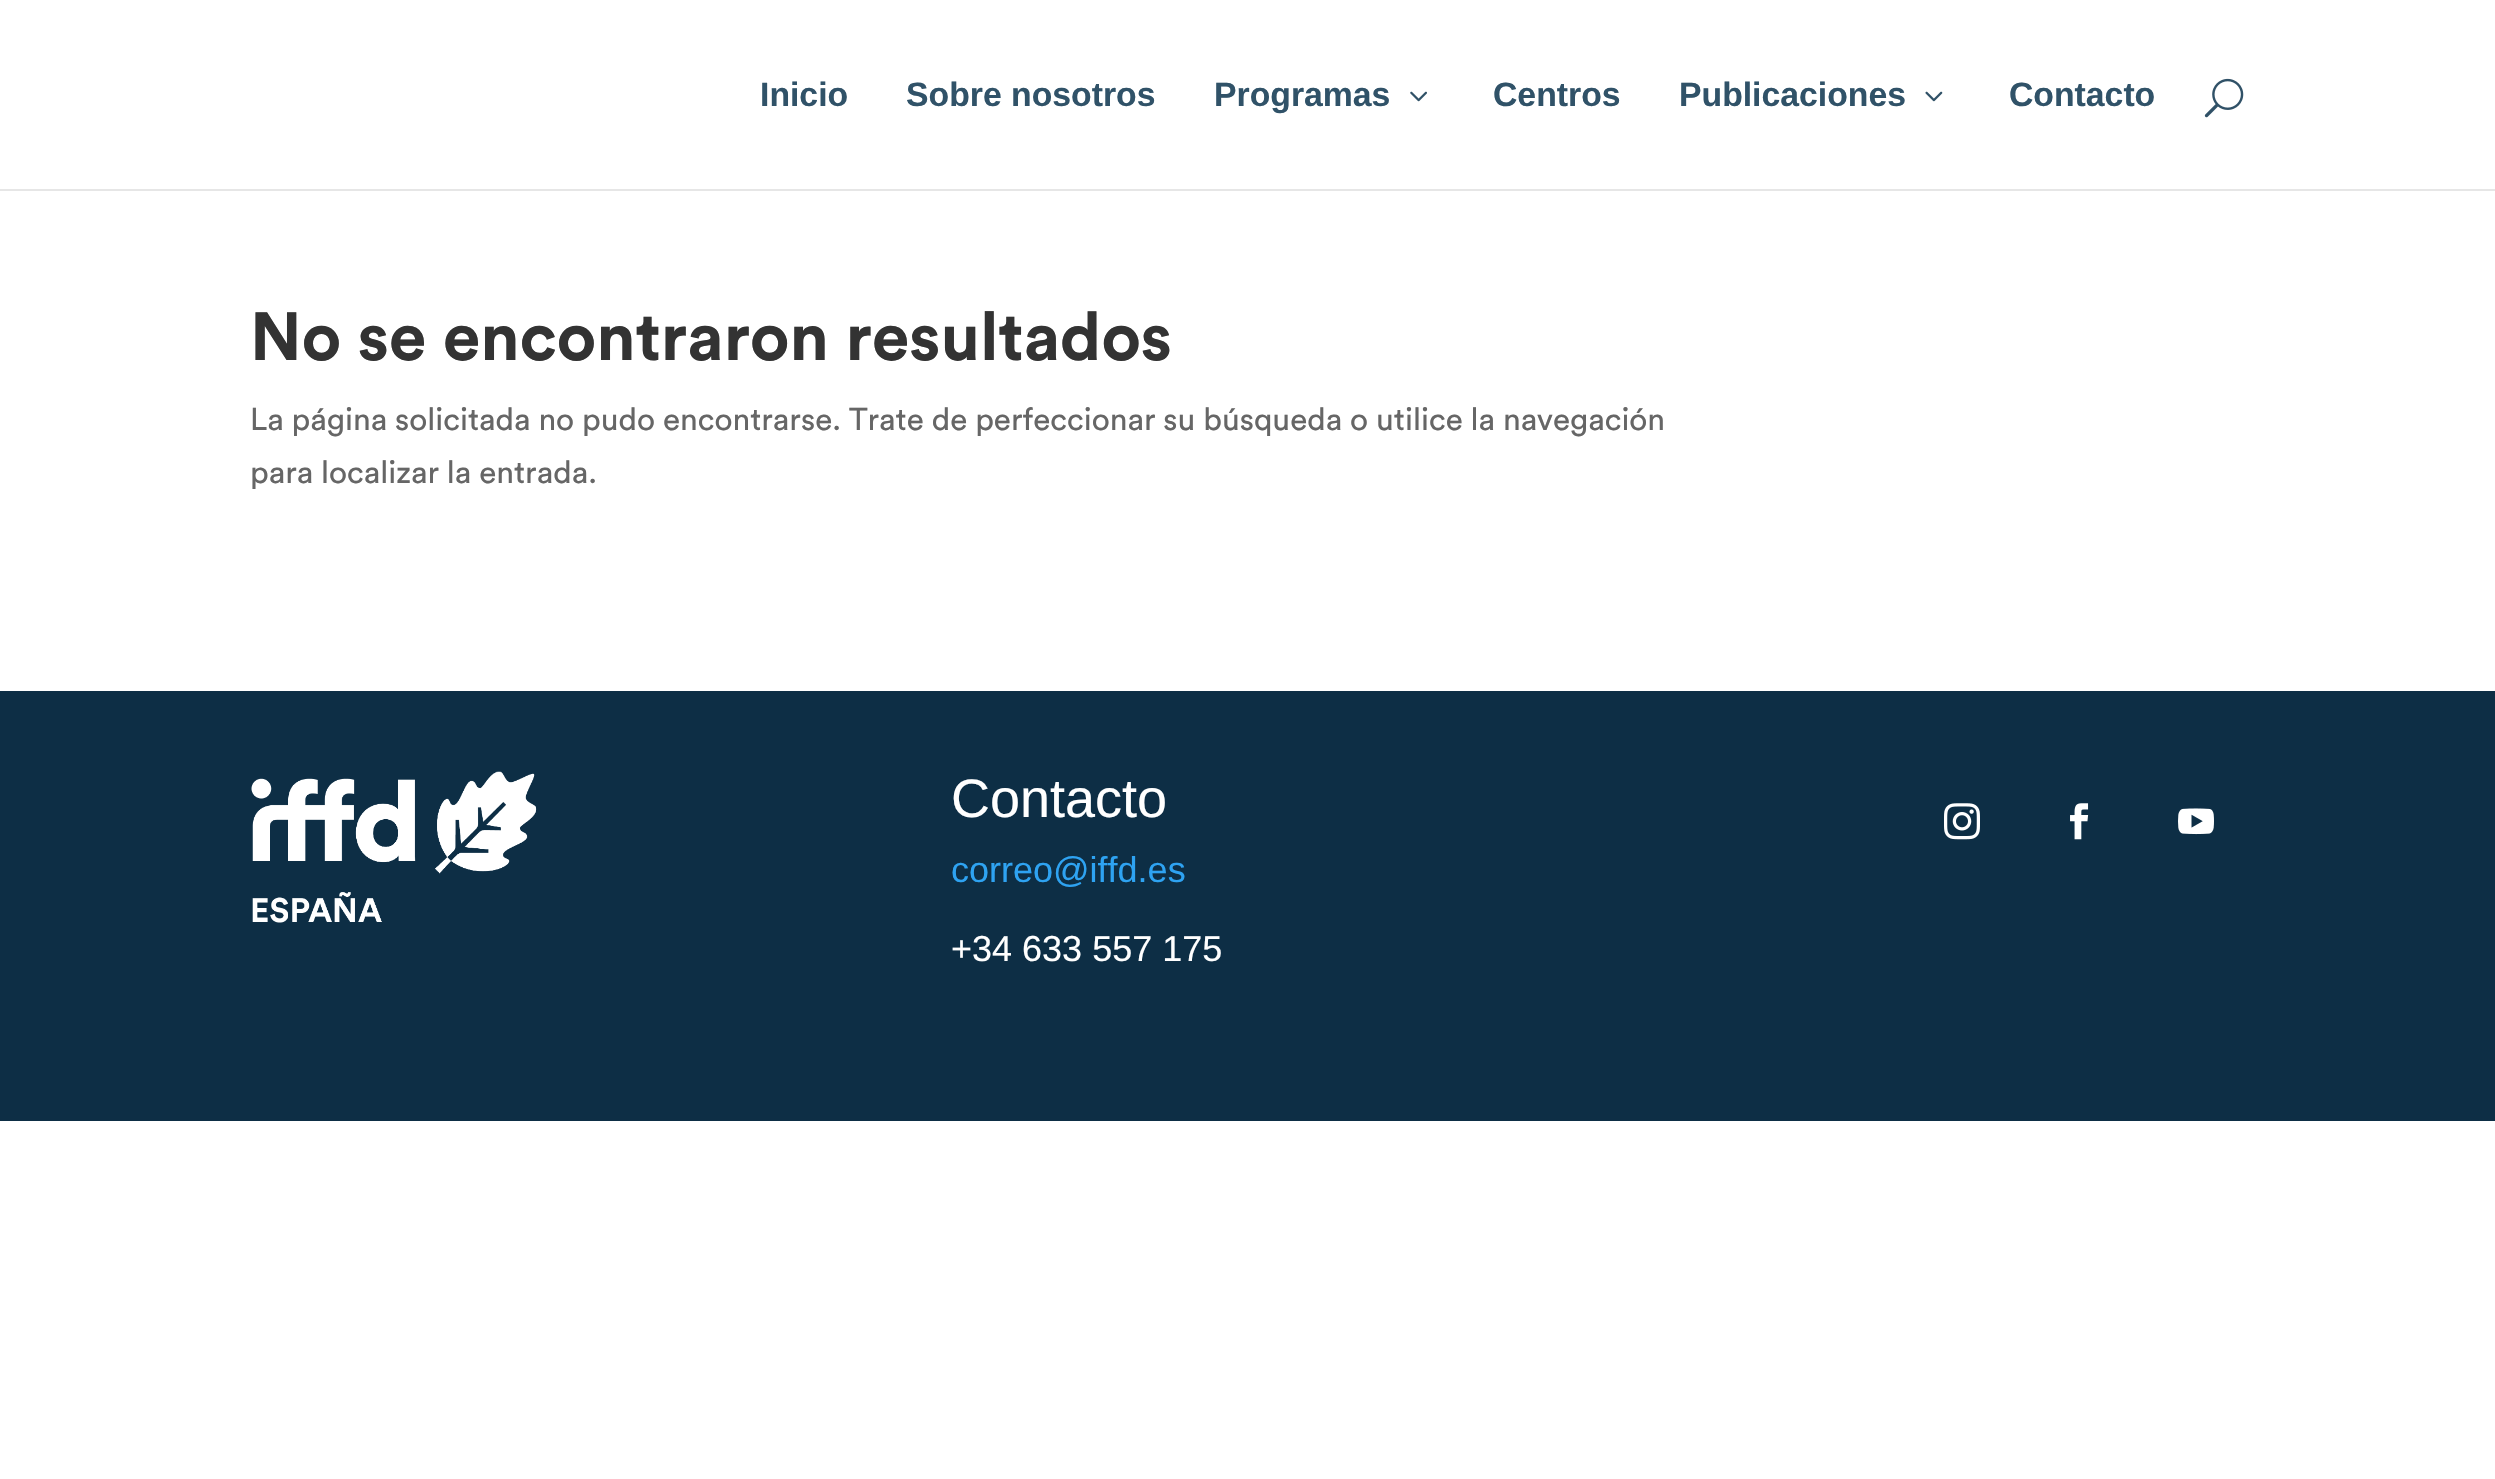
void draw(SkCanvas* canvas) {
    SkPaint paint;
    paint.setAntiAlias(true);
    auto face = [&](const char* family, int weight, float size, bool italic = false) {
        SkFontStyle style(weight, SkFontStyle::kNormal_Width,
            italic ? SkFontStyle::kItalic_Slant : SkFontStyle::kUpright_Slant);
        SkFont result(fontMgr->matchFamilyStyle(family, style), size);
        result.setSubpixel(true);
        return result;
    };
    auto write = [&](const char* s, float x, float y, const SkFont& font, SkColor color) {
        SkPaint ink(SkColor4f::FromColor(color));
        ink.setAntiAlias(true);
        canvas->drawString(s, x, y, font, ink);
    };
    auto block = [&](float x, float y, float w, float h, SkColor color) {
        SkPaint ink(SkColor4f::FromColor(color));
        ink.setAntiAlias(true);
        canvas->drawRect(SkRect::MakeXYWH(x, y, w, h), ink);
    };
    auto paste = [&](const char* path, float x, float y, float w, float h) {
        auto image = SkImages::DeferredFromEncodedData(SkData::MakeFromFileName(path));
        canvas->drawImageRect(image, SkRect::MakeXYWH(x, y, w, h), SkSamplingOptions());
    };
    canvas->clear(SK_ColorWHITE);
    block(0, 189, 2495, 2, SkColorSetRGB(230, 230, 230));
    auto kFont1 = face("Liberation Sans", 700, 33.75f);
    write("Inicio", 760, 106, kFont1, SkColorSetRGB(48, 82, 104));
    write("Sobre nosotros", 906, 106, kFont1, SkColorSetRGB(48, 82, 104));
    write("Programas", 1214, 106, kFont1, SkColorSetRGB(48, 82, 104));
    paste("pic1.png", 1410, 91, 17, 11);
    write("Centros", 1493, 106, kFont1, SkColorSetRGB(48, 82, 104));
    write("Publicaciones", 1679, 106, kFont1, SkColorSetRGB(48, 82, 104));
    paste("pic2.png", 1925, 91, 18, 11);
    write("Contacto", 2009, 106, kFont1, SkColorSetRGB(48, 82, 104));
    paste("pic3.png", 2204, 78, 40, 40);
    auto kFont2 = face("Circular", 700, 67.5f);
    write("No se encontraron resultados", 250, 360, kFont2, SkColorSetRGB(51, 51, 51));
    auto kFont3 = face("Circular", 400, 31.5f);
    write("La página solicitada no pudo encontrarse. Trate de perfeccionar su búsqueda o utilice la navegación", 250, 430, kFont3, SkColorSetRGB(102, 102, 102));
    write("para localizar la entrada.", 250, 483, kFont3, SkColorSetRGB(102, 102, 102));
    block(0, 691, 2495, 430, SkColorSetRGB(13, 46, 69));
    paste("pic4.png", 251, 771, 286, 152);
    auto kFont4 = face("Liberation Sans", 400, 54);
    write("Contacto", 951, 817, kFont4, SK_ColorWHITE);
    auto kFont5 = face("Liberation Sans", 400, 36);
    write("correo@iffd.es", 951, 882, kFont5, SkColorSetRGB(46, 163, 242));
    write("+34 633 557 175", 951, 961, kFont5, SK_ColorWHITE);
    paste("pic5.png", 1944, 803, 36, 37);
    paste("pic6.png", 2070, 803, 19, 37);
    paste("pic7.png", 2178, 808, 36, 27);
}
